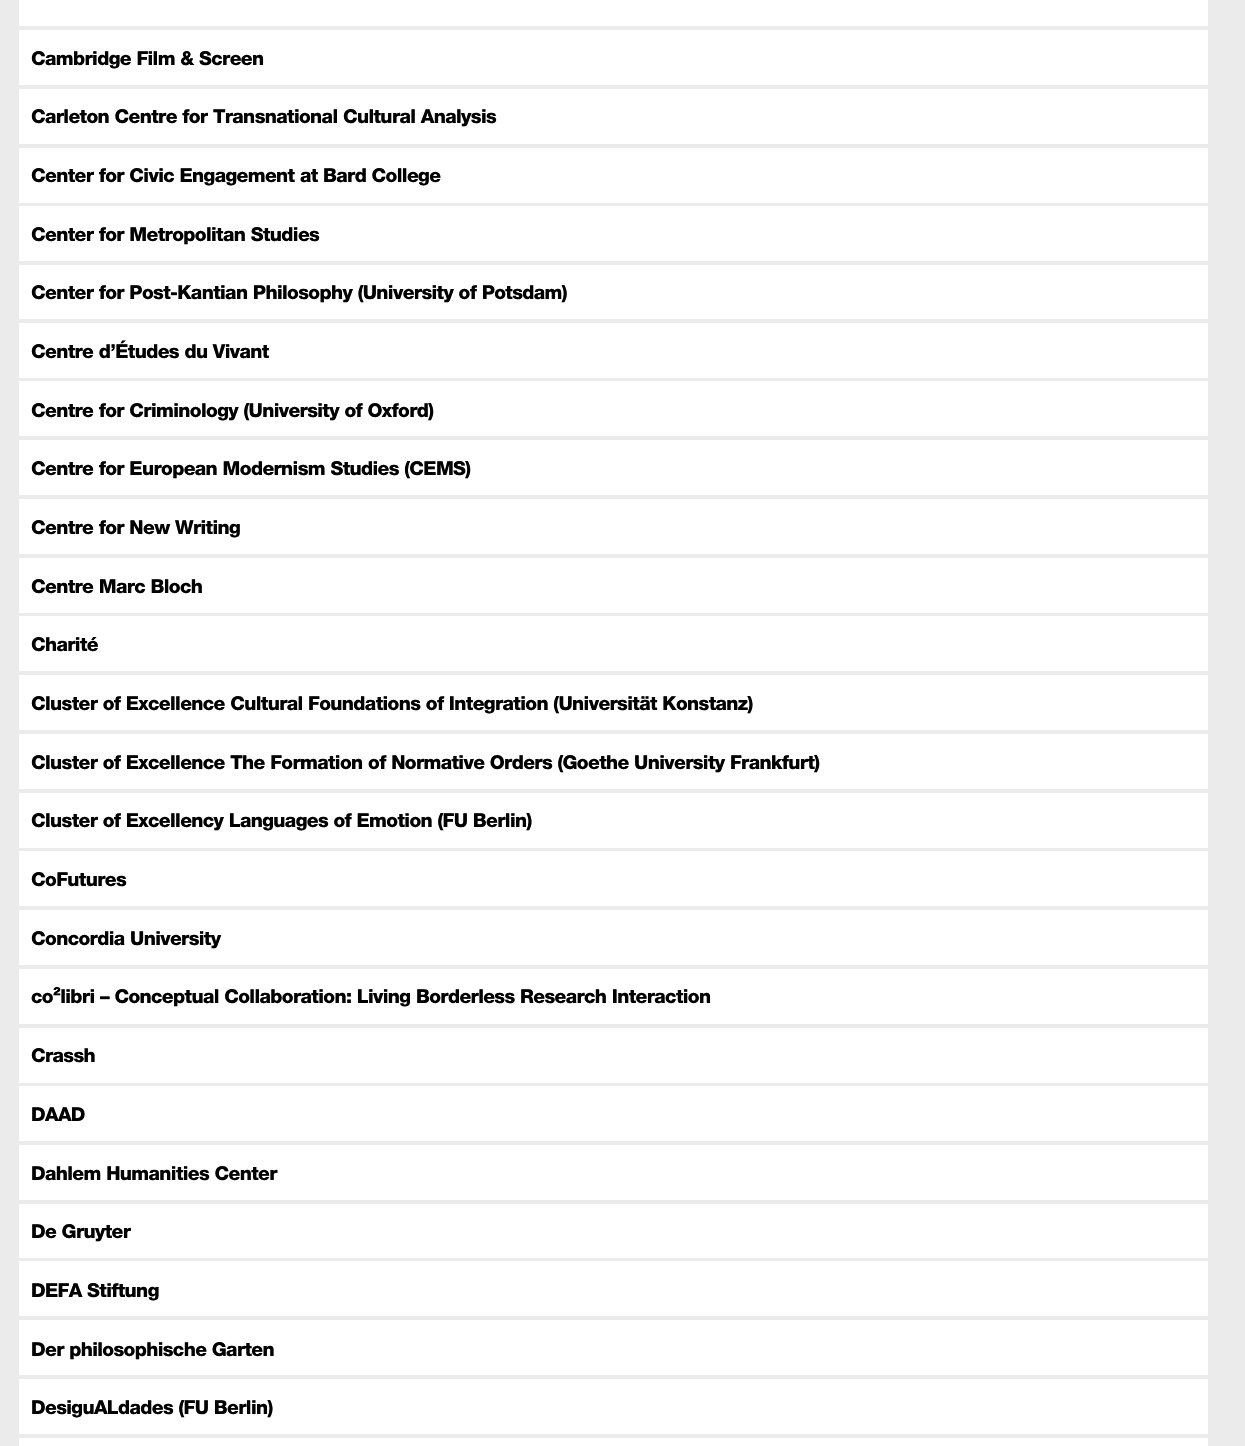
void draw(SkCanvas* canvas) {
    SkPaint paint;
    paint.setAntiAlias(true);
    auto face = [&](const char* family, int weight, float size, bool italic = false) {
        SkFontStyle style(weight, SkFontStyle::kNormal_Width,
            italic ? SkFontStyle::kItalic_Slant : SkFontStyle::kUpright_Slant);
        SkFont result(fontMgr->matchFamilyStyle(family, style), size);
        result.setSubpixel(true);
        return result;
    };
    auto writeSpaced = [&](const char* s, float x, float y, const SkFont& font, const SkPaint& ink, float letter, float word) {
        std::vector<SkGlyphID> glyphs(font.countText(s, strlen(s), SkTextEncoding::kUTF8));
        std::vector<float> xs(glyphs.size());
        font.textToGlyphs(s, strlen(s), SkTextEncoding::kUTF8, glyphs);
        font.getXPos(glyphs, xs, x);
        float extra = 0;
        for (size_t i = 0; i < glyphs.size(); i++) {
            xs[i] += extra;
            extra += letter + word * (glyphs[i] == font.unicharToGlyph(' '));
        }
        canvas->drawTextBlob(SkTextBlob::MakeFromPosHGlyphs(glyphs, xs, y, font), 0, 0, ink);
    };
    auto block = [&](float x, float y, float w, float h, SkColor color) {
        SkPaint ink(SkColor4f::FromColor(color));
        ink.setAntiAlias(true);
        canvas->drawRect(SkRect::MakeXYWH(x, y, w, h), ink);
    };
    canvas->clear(SkColorSetRGB(235, 235, 235));
    block(19, 0, 1189, 26, SK_ColorWHITE);
    block(19, 30, 1189, 55, SK_ColorWHITE);
    auto kFont1 = face("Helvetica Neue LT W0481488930", 900, 19.25f);
    paint.setColor(SK_ColorBLACK);
    writeSpaced("Cambridge Film & Screen", 31, 65, kFont1, paint, -0.62f, 0);
    block(19, 89, 1189, 55, SK_ColorWHITE);
    writeSpaced("Carleton Centre for Transnational Cultural Analysis", 31, 123, kFont1, paint, -0.62f, 0);
    block(19, 148, 1189, 55, SK_ColorWHITE);
    writeSpaced("Center for Civic Engagement at Bard College", 31, 182, kFont1, paint, -0.62f, 0);
    block(19, 206, 1189, 55, SK_ColorWHITE);
    writeSpaced("Center for Metropolitan Studies", 31, 241, kFont1, paint, -0.62f, 0);
    block(19, 265, 1189, 54, SK_ColorWHITE);
    writeSpaced("Center for Post-Kantian Philosophy (University of Potsdam)", 31, 299, kFont1, paint, -0.62f, 0);
    block(19, 323, 1189, 55, SK_ColorWHITE);
    writeSpaced("Centre d’Études du Vivant", 31, 358, kFont1, paint, -0.62f, 0);
    block(19, 381, 1189, 55, SK_ColorWHITE);
    writeSpaced("Centre for Criminology (University of Oxford)", 31, 417, kFont1, paint, -0.62f, 0);
    block(19, 440, 1189, 55, SK_ColorWHITE);
    writeSpaced("Centre for European Modernism Studies (CEMS)", 31, 475, kFont1, paint, -0.62f, 0);
    block(19, 499, 1189, 55, SK_ColorWHITE);
    writeSpaced("Centre for New Writing", 31, 534, kFont1, paint, -0.62f, 0);
    block(19, 558, 1189, 55, SK_ColorWHITE);
    writeSpaced("Centre Marc Bloch", 31, 593, kFont1, paint, -0.62f, 0);
    block(19, 616, 1189, 55, SK_ColorWHITE);
    writeSpaced("Charité", 31, 651, kFont1, paint, -0.62f, 0);
    block(19, 675, 1189, 55, SK_ColorWHITE);
    writeSpaced("Cluster of Excellence Cultural Foundations of Integration (Universität Konstanz)", 31, 710, kFont1, paint, -0.62f, 0);
    block(19, 734, 1189, 55, SK_ColorWHITE);
    writeSpaced("Cluster of Excellence The Formation of Normative Orders (Goethe University Frankfurt)", 31, 769, kFont1, paint, -0.62f, 0);
    block(19, 793, 1189, 55, SK_ColorWHITE);
    writeSpaced("Cluster of Excellency Languages of Emotion (FU Berlin)", 31, 827, kFont1, paint, -0.62f, 0);
    block(19, 851, 1189, 55, SK_ColorWHITE);
    writeSpaced("CoFutures", 31, 886, kFont1, paint, -0.62f, 0);
    block(19, 910, 1189, 55, SK_ColorWHITE);
    writeSpaced("Concordia University", 31, 945, kFont1, paint, -0.62f, 0);
    block(19, 969, 1189, 55, SK_ColorWHITE);
    writeSpaced("co²libri – Conceptual Collaboration: Living Borderless Research Interaction", 31, 1003, kFont1, paint, -0.62f, 0);
    block(19, 1028, 1189, 55, SK_ColorWHITE);
    writeSpaced("Crassh", 31, 1062, kFont1, paint, -0.62f, 0);
    block(19, 1086, 1189, 55, SK_ColorWHITE);
    writeSpaced("DAAD", 31, 1121, kFont1, paint, -0.62f, 0);
    block(19, 1145, 1189, 55, SK_ColorWHITE);
    writeSpaced("Dahlem Humanities Center", 31, 1180, kFont1, paint, -0.62f, 0);
    block(19, 1204, 1189, 54, SK_ColorWHITE);
    writeSpaced("De Gruyter", 31, 1238, kFont1, paint, -0.62f, 0);
    block(19, 1261, 1189, 55, SK_ColorWHITE);
    writeSpaced("DEFA Stiftung", 31, 1297, kFont1, paint, -0.62f, 0);
    block(19, 1320, 1189, 55, SK_ColorWHITE);
    writeSpaced("Der philosophische Garten", 31, 1356, kFont1, paint, -0.62f, 0);
    block(19, 1379, 1189, 55, SK_ColorWHITE);
    writeSpaced("DesiguALdades (FU Berlin)", 31, 1414, kFont1, paint, -0.62f, 0);
    block(19, 1438, 1189, 8, SK_ColorWHITE);
}
